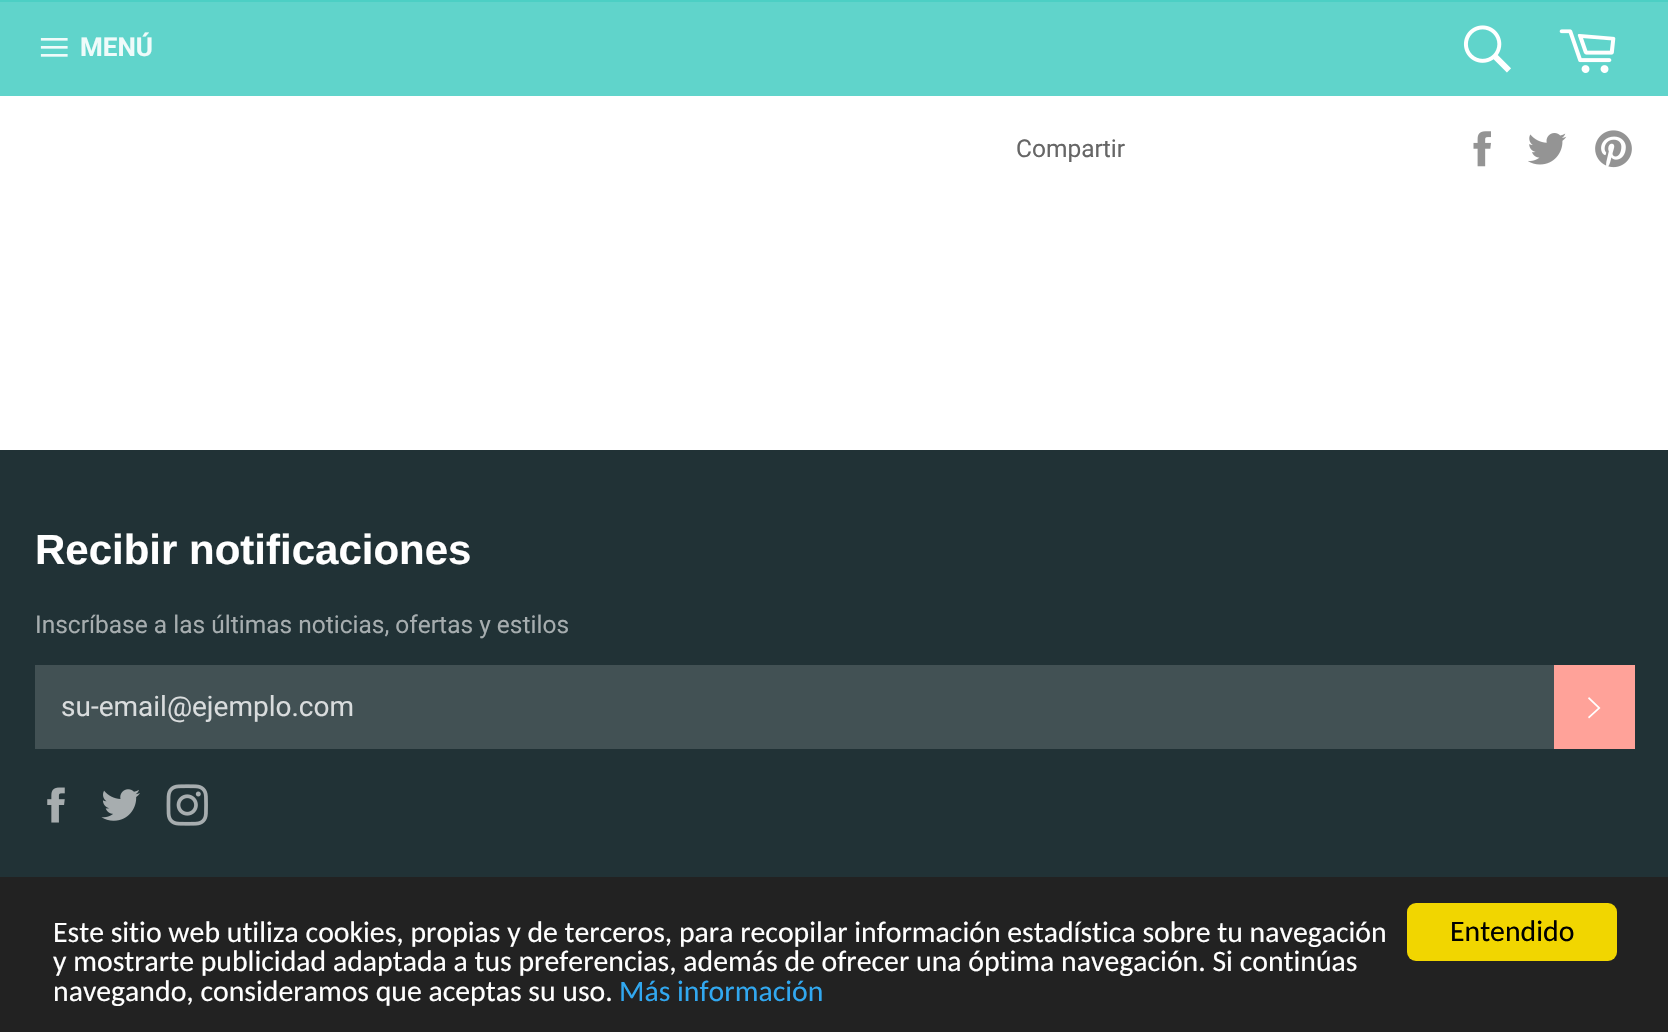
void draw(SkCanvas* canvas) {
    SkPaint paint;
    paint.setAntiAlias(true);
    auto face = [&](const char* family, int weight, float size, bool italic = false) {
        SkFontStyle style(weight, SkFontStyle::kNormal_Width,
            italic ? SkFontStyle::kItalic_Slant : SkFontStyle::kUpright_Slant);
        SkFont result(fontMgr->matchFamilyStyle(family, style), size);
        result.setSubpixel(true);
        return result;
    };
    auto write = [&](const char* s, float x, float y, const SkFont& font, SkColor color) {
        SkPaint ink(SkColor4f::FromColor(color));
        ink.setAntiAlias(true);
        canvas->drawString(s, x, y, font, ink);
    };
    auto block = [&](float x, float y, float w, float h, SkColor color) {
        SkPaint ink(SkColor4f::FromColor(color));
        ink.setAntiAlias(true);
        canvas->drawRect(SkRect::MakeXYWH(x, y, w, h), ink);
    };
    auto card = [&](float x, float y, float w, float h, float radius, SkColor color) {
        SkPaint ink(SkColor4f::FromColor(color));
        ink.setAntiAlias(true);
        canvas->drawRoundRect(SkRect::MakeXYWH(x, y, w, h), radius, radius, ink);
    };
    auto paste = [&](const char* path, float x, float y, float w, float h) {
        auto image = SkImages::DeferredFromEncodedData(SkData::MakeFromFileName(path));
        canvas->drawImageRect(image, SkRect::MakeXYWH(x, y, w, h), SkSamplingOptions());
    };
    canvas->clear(SkColorSetRGB(33, 50, 54));
    block(0, 96, 1668, 354, SK_ColorWHITE);
    block(0, 2, 1668, 94, SkColorSetRGB(96, 212, 203));
    block(0, 0, 1668, 2, SkColorSetRGB(76, 207, 196));
    paste("pic1.png", 40, 38, 28, 19);
    auto kFont1 = face("Roboto", 700, 26);
    write("MENÚ", 80, 56, kFont1, SkColorSetRGB(239, 251, 250));
    paste("pic2.png", 1463, 25, 48, 48);
    paste("pic3.png", 1559, 29, 57, 44);
    auto kFont2 = face("Roboto", 400, 24.5f);
    write("Compartir", 1016, 157, kFont2, SkColorSetRGB(102, 102, 102));
    paste("pic4.png", 1473, 131, 18, 36);
    paste("pic5.png", 1528, 133, 39, 32);
    paste("pic6.png", 1595, 130, 37, 38);
    auto kFont3 = face("Liberation Sans", 700, 42);
    write("Recibir notificaciones", 35, 564, kFont3, SK_ColorWHITE);
    write("Inscríbase a las últimas noticias, ofertas y estilos", 35, 633, kFont2, SkColorSetRGB(166, 173, 175));
    block(35, 665, 1519, 84, SkColorSetRGB(66, 81, 84));
    auto kFont4 = face("Roboto", 400, 28);
    write("su-email@ejemplo.com", 61, 716, kFont4, SkColorSetRGB(217, 220, 221));
    block(1554, 665, 81, 84, SkColorSetRGB(255, 162, 153));
    paint.setColor(SK_ColorWHITE);
    canvas->drawPath(SkPathBuilder().moveTo(1588, 698.5f).lineTo(1589, 697).lineTo(1600.5f, 708).lineTo(1589, 718.5f).lineTo(1588, 717).lineTo(1598, 708).close().detach(), paint);
    paste("pic7.png", 47, 787, 18, 36);
    paste("pic8.png", 101, 789, 39, 32);
    paste("pic9.png", 166, 784, 42, 42);
    block(0, 877, 1668, 155, SkColorSetRGB(34, 34, 34));
    auto kFont5 = face("Carlito", 400, 29.75f);
    write("Este sitio web utiliza cookies, propias y de terceros, para recopilar información estadística sobre tu navegación", 53, 942, kFont5, SK_ColorWHITE);
    write("y mostrarte publicidad adaptada a tus preferencias, además de ofrecer una óptima navegación. Si continúas", 53, 971, kFont5, SK_ColorWHITE);
    write("navegando, consideramos que aceptas su uso.", 53, 1001, kFont5, SK_ColorWHITE);
    write("Más información", 619, 1001, kFont5, SkColorSetRGB(49, 168, 240));
    card(1407, 903, 210, 58, 9, SkColorSetRGB(241, 214, 0));
    write("Entendido", 1450, 941, kFont5, SK_ColorBLACK);
}
